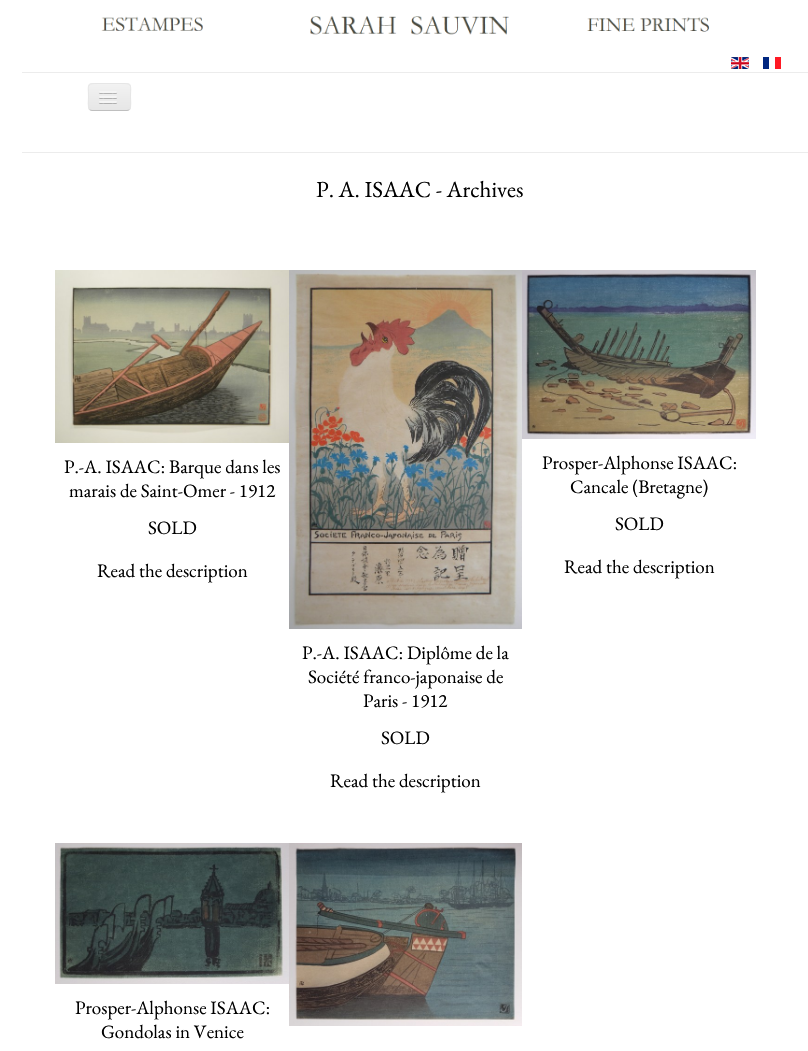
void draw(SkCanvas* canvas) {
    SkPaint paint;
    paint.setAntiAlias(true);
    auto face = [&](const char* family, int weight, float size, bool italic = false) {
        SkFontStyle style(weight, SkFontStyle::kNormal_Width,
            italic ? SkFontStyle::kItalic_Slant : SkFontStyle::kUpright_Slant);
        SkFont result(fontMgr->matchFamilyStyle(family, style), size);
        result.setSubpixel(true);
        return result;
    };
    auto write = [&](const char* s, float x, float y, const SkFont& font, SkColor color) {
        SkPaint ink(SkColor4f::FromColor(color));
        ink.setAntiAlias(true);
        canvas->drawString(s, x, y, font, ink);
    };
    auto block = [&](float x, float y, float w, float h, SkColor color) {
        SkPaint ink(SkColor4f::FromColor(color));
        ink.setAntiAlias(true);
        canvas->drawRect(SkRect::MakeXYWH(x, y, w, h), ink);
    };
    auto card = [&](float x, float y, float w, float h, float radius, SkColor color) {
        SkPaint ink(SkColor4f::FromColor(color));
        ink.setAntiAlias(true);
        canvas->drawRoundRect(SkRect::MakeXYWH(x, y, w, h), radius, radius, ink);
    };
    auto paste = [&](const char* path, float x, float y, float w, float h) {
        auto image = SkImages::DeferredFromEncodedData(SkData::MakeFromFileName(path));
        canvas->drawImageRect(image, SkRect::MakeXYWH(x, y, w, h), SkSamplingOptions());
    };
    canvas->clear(SK_ColorWHITE);
    paste("pic1.png", 101, 16, 609, 19);
    paste("pic2.png", 731, 57, 18, 12);
    paste("pic3.png", 763, 57, 18, 12);
    block(22, 72, 786, 1, SkColorSetRGB(236, 236, 236));
    block(22, 152, 786, 1, SkColorSetRGB(236, 236, 236));
    card(88, 83, 43, 28, 4, SkColorSetRGB(237, 237, 237));
    canvas->save();
    canvas->clipPath(SkPathBuilder().moveTo(92, 83).lineTo(127, 83).cubicTo(129, 83, 131, 85, 131, 87).lineTo(131, 107).cubicTo(131, 109, 129, 111, 127, 111).lineTo(92, 111).cubicTo(90, 111, 88, 109, 88, 107).lineTo(88, 87).cubicTo(88, 85, 90, 83, 92, 83).close().detach(), true);
    {
        const SkColor colors[] = {SkColorSetRGB(242, 242, 242), SkColorSetRGB(230, 230, 230)};
        const float stops[] = {0, 1};
        const SkPoint ends[] = {{110, 84}, {110, 110}};
        paint.setShader(SkGradientShader::MakeLinear(ends, colors, stops, 2, SkTileMode::kClamp));
        paint.setAlpha(255);
    }
    canvas->drawRect(SkRect::MakeXYWH(88, 84, 43, 26), paint);
    canvas->restore();
    paint.setStyle(SkPaint::kStroke_Style);
    paint.setStrokeWidth(1);
    paint.setShader(nullptr);
    paint.setColor(SkColorSetRGB(191, 191, 191));
    canvas->drawPath(SkPathBuilder().moveTo(129.5f, 109.5f).cubicTo(129, 110, 128, 110.5f, 127, 110.5f).lineTo(92, 110.5f).cubicTo(91, 110.5f, 90, 110, 89.5f, 109.5f).detach(), paint);
    paint.setColor(SkColorSetRGB(230, 230, 230));
    canvas->drawPath(SkPathBuilder().moveTo(89.5f, 109.5f).cubicTo(87.5f, 107, 88.5f, 99.5f, 88.5f, 97).cubicTo(88.5f, 85, 86, 83.5f, 98, 83.5f).lineTo(121, 83.5f).cubicTo(133, 83.5f, 130.5f, 85, 130.5f, 97).cubicTo(130.5f, 99.5f, 131.5f, 107, 129.5f, 109.5f).detach(), paint);
    paint.setStyle(SkPaint::kFill_Style);
    paint.setColor(SkColorSetRGB(179, 179, 179));
    canvas->drawPath(SkPathBuilder().moveTo(99, 92.5f).cubicTo(98, 94.5f, 102.5f, 94, 102.5f, 94).lineTo(113.5f, 94).cubicTo(113.5f, 94, 118, 94.5f, 117, 92.5f).cubicTo(116, 93.5f, 109.5f, 93, 108, 93).cubicTo(106.5f, 93, 100, 93.5f, 99, 92.5f).close().detach(), paint);
    card(99, 91, 18, 2, 1, SkColorSetRGB(245, 245, 245));
    paint.setColor(SkColorSetRGB(176, 176, 176));
    canvas->drawPath(SkPathBuilder().moveTo(99, 97.5f).cubicTo(98, 99.5f, 102.5f, 99, 102.5f, 99).lineTo(113.5f, 99).cubicTo(113.5f, 99, 118, 99.5f, 117, 97.5f).cubicTo(116, 98.5f, 109.5f, 98, 108, 98).cubicTo(106.5f, 98, 100, 98.5f, 99, 97.5f).close().detach(), paint);
    card(99, 96, 18, 2, 1, SkColorSetRGB(245, 245, 245));
    paint.setColor(SkColorSetRGB(175, 175, 175));
    canvas->drawPath(SkPathBuilder().moveTo(99, 102.5f).cubicTo(98, 104.5f, 102.5f, 104, 102.5f, 104).lineTo(113.5f, 104).cubicTo(113.5f, 104, 118, 104.5f, 117, 102.5f).cubicTo(116, 103.5f, 109.5f, 103, 108, 103).cubicTo(106.5f, 103, 100, 103.5f, 99, 102.5f).close().detach(), paint);
    card(99, 101, 18, 2, 1, SkColorSetRGB(245, 245, 245));
    auto kFont1 = face("EB Garamond", 400, 23);
    write("P. A. ISAAC - Archives", 316, 197, kFont1, SK_ColorBLACK);
    paste("pic4.png", 55, 270, 234, 173);
    auto kFont2 = face("EB Garamond", 400, 19);
    write("P.-A. ISAAC: Barque dans les", 64, 473, kFont2, SK_ColorBLACK);
    write("marais de Saint-Omer - 1912", 69, 497, kFont2, SK_ColorBLACK);
    write("SOLD", 148, 534, kFont2, SK_ColorBLACK);
    write("Read the description", 97, 577, kFont2, SK_ColorBLACK);
    paste("pic5.png", 522, 270, 234, 169);
    write("Prosper-Alphonse ISAAC:", 542, 469, kFont2, SK_ColorBLACK);
    write("Cancale (Bretagne)", 570, 493, kFont2, SK_ColorBLACK);
    write("SOLD", 615, 530, kFont2, SK_ColorBLACK);
    write("Read the description", 564, 573, kFont2, SK_ColorBLACK);
    paste("pic6.png", 289, 270, 233, 359);
    write("P.-A. ISAAC: Diplôme de la", 302, 659, kFont2, SK_ColorBLACK);
    write("Société franco-japonaise de", 308, 683, kFont2, SK_ColorBLACK);
    write("Paris - 1912", 363, 707, kFont2, SK_ColorBLACK);
    write("SOLD", 381, 744, kFont2, SK_ColorBLACK);
    write("Read the description", 330, 787, kFont2, SK_ColorBLACK);
    paste("pic7.png", 55, 843, 234, 141);
    write("Prosper-Alphonse ISAAC:", 75, 1014, kFont2, SK_ColorBLACK);
    write("Gondolas in Venice", 101, 1038, kFont2, SK_ColorBLACK);
    paste("pic8.png", 289, 843, 233, 183);
}
